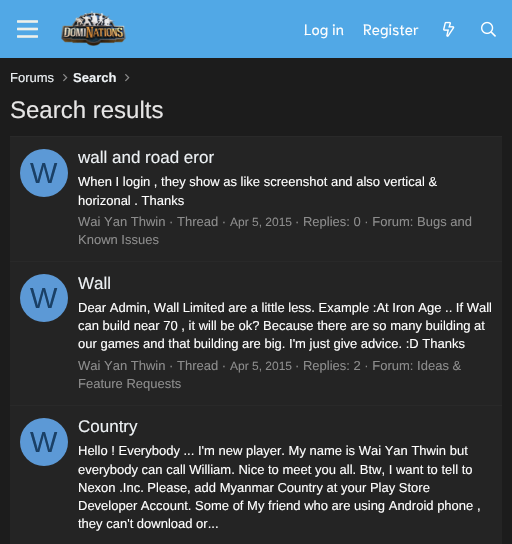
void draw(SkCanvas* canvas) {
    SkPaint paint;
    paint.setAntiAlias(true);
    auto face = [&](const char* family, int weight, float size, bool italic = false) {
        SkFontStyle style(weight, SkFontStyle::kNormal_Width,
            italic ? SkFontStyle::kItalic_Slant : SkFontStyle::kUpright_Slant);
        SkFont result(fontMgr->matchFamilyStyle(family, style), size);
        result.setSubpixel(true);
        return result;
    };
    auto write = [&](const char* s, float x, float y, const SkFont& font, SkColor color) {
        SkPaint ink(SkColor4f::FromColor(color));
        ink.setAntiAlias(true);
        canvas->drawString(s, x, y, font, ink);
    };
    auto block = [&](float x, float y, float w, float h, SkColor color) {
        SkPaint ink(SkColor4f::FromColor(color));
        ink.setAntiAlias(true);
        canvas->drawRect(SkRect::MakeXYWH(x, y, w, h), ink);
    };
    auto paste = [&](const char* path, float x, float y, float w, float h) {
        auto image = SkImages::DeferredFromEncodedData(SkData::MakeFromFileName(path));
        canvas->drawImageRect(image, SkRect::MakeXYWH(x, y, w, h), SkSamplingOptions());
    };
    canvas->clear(SkColorSetRGB(28, 28, 28));
    block(0, 0, 512, 58, SkColorSetRGB(81, 168, 230));
    paste("pic1.png", 17, 20, 21, 18);
    paste("pic2.png", 61, 10, 65, 36);
    auto kFont1 = face("Niramit", 400, 15);
    write("Log in", 304, 35, kFont1, SkColorSetRGB(254, 254, 254));
    write("Register", 363, 35, kFont1, SkColorSetRGB(254, 254, 254));
    paste("pic3.png", 443, 21, 12, 16);
    paste("pic4.png", 481, 21, 15, 16);
    auto kFont2 = face("Liberation Sans", 400, 13);
    write("Forums", 10, 82, kFont2, SkColorSetRGB(236, 240, 243));
    paste("pic5.png", 63, 74, 5, 8);
    auto kFont3 = face("Liberation Sans", 700, 13);
    write("Search", 73, 82, kFont3, SkColorSetRGB(236, 240, 243));
    paste("pic5.png", 125, 74, 5, 8);
    auto kFont4 = face("Liberation Sans", 400, 24);
    write("Search results", 10, 118, kFont4, SkColorSetRGB(230, 229, 229));
    block(10, 136, 492, 1, SkColorSetRGB(41, 41, 41));
    block(10, 137, 492, 124, SkColorSetRGB(36, 36, 36));
    paint.setColor(SkColorSetRGB(92, 153, 214));
    canvas->drawCircle(44, 173, 24, paint);
    auto kFont5 = face("Liberation Sans", 400, 29);
    write("W", 30, 183, kFont5, SkColorSetRGB(26, 64, 102));
    auto kFont6 = face("Liberation Sans", 400, 17);
    write("wall and road eror", 78, 163, kFont6, SkColorSetRGB(236, 240, 243));
    write("When I login , they show as like screenshot and also vertical &", 78, 186, kFont2, SkColorSetRGB(254, 254, 254));
    write("horizonal . Thanks", 78, 205, kFont2, SkColorSetRGB(254, 254, 254));
    write("Wai Yan Thwin · Thread ·", 78, 226, kFont2, SkColorSetRGB(140, 140, 140));
    auto kFont7 = face("Liberation Sans", 400, 12);
    write("Apr 5, 2015", 230, 226, kFont7, SkColorSetRGB(140, 140, 140));
    write("· Replies: 0 · Forum: Bugs and", 295, 226, kFont2, SkColorSetRGB(140, 140, 140));
    write("Known Issues", 78, 244, kFont2, SkColorSetRGB(140, 140, 140));
    block(10, 262, 492, 143, SkColorSetRGB(36, 36, 36));
    block(10, 261, 492, 1, SkColorSetRGB(41, 41, 41));
    canvas->drawCircle(44, 298, 24, paint);
    write("W", 30, 308, kFont5, SkColorSetRGB(26, 64, 102));
    write("Wall", 78, 289, kFont6, SkColorSetRGB(236, 240, 243));
    write("Dear Admin, Wall Limited are a little less. Example :At Iron Age .. If Wall", 78, 312, kFont2, SkColorSetRGB(254, 254, 254));
    write("can build near 70 , it will be ok? Because there are so many building at", 78, 330, kFont2, SkColorSetRGB(254, 254, 254));
    write("our games and that building are big. I'm just give advice. :D Thanks", 78, 348, kFont2, SkColorSetRGB(254, 254, 254));
    write("Wai Yan Thwin · Thread ·", 78, 370, kFont2, SkColorSetRGB(140, 140, 140));
    write("Apr 5, 2015", 230, 370, kFont7, SkColorSetRGB(140, 140, 140));
    write("· Replies: 2 · Forum: Ideas &", 295, 370, kFont2, SkColorSetRGB(140, 140, 140));
    write("Feature Requests", 78, 388, kFont2, SkColorSetRGB(140, 140, 140));
    block(10, 406, 492, 138, SkColorSetRGB(36, 36, 36));
    block(10, 405, 492, 1, SkColorSetRGB(41, 41, 41));
    canvas->drawCircle(44, 442, 24, paint);
    write("W", 30, 452, kFont5, SkColorSetRGB(26, 64, 102));
    write("Country", 78, 432, kFont6, SkColorSetRGB(236, 240, 243));
    write("Hello ! Everybody ... I'm new player. My name is Wai Yan Thwin but", 78, 455, kFont2, SkColorSetRGB(254, 254, 254));
    write("everybody can call William. Nice to meet you all. Btw, I want to tell to", 78, 474, kFont2, SkColorSetRGB(254, 254, 254));
    write("Nexon .Inc. Please, add Myanmar Country at your Play Store", 78, 492, kFont2, SkColorSetRGB(254, 254, 254));
    write("Developer Account. Some of My friend who are using Android phone ,", 78, 510, kFont2, SkColorSetRGB(254, 254, 254));
    write("they can't download or...", 78, 528, kFont2, SkColorSetRGB(254, 254, 254));
}
